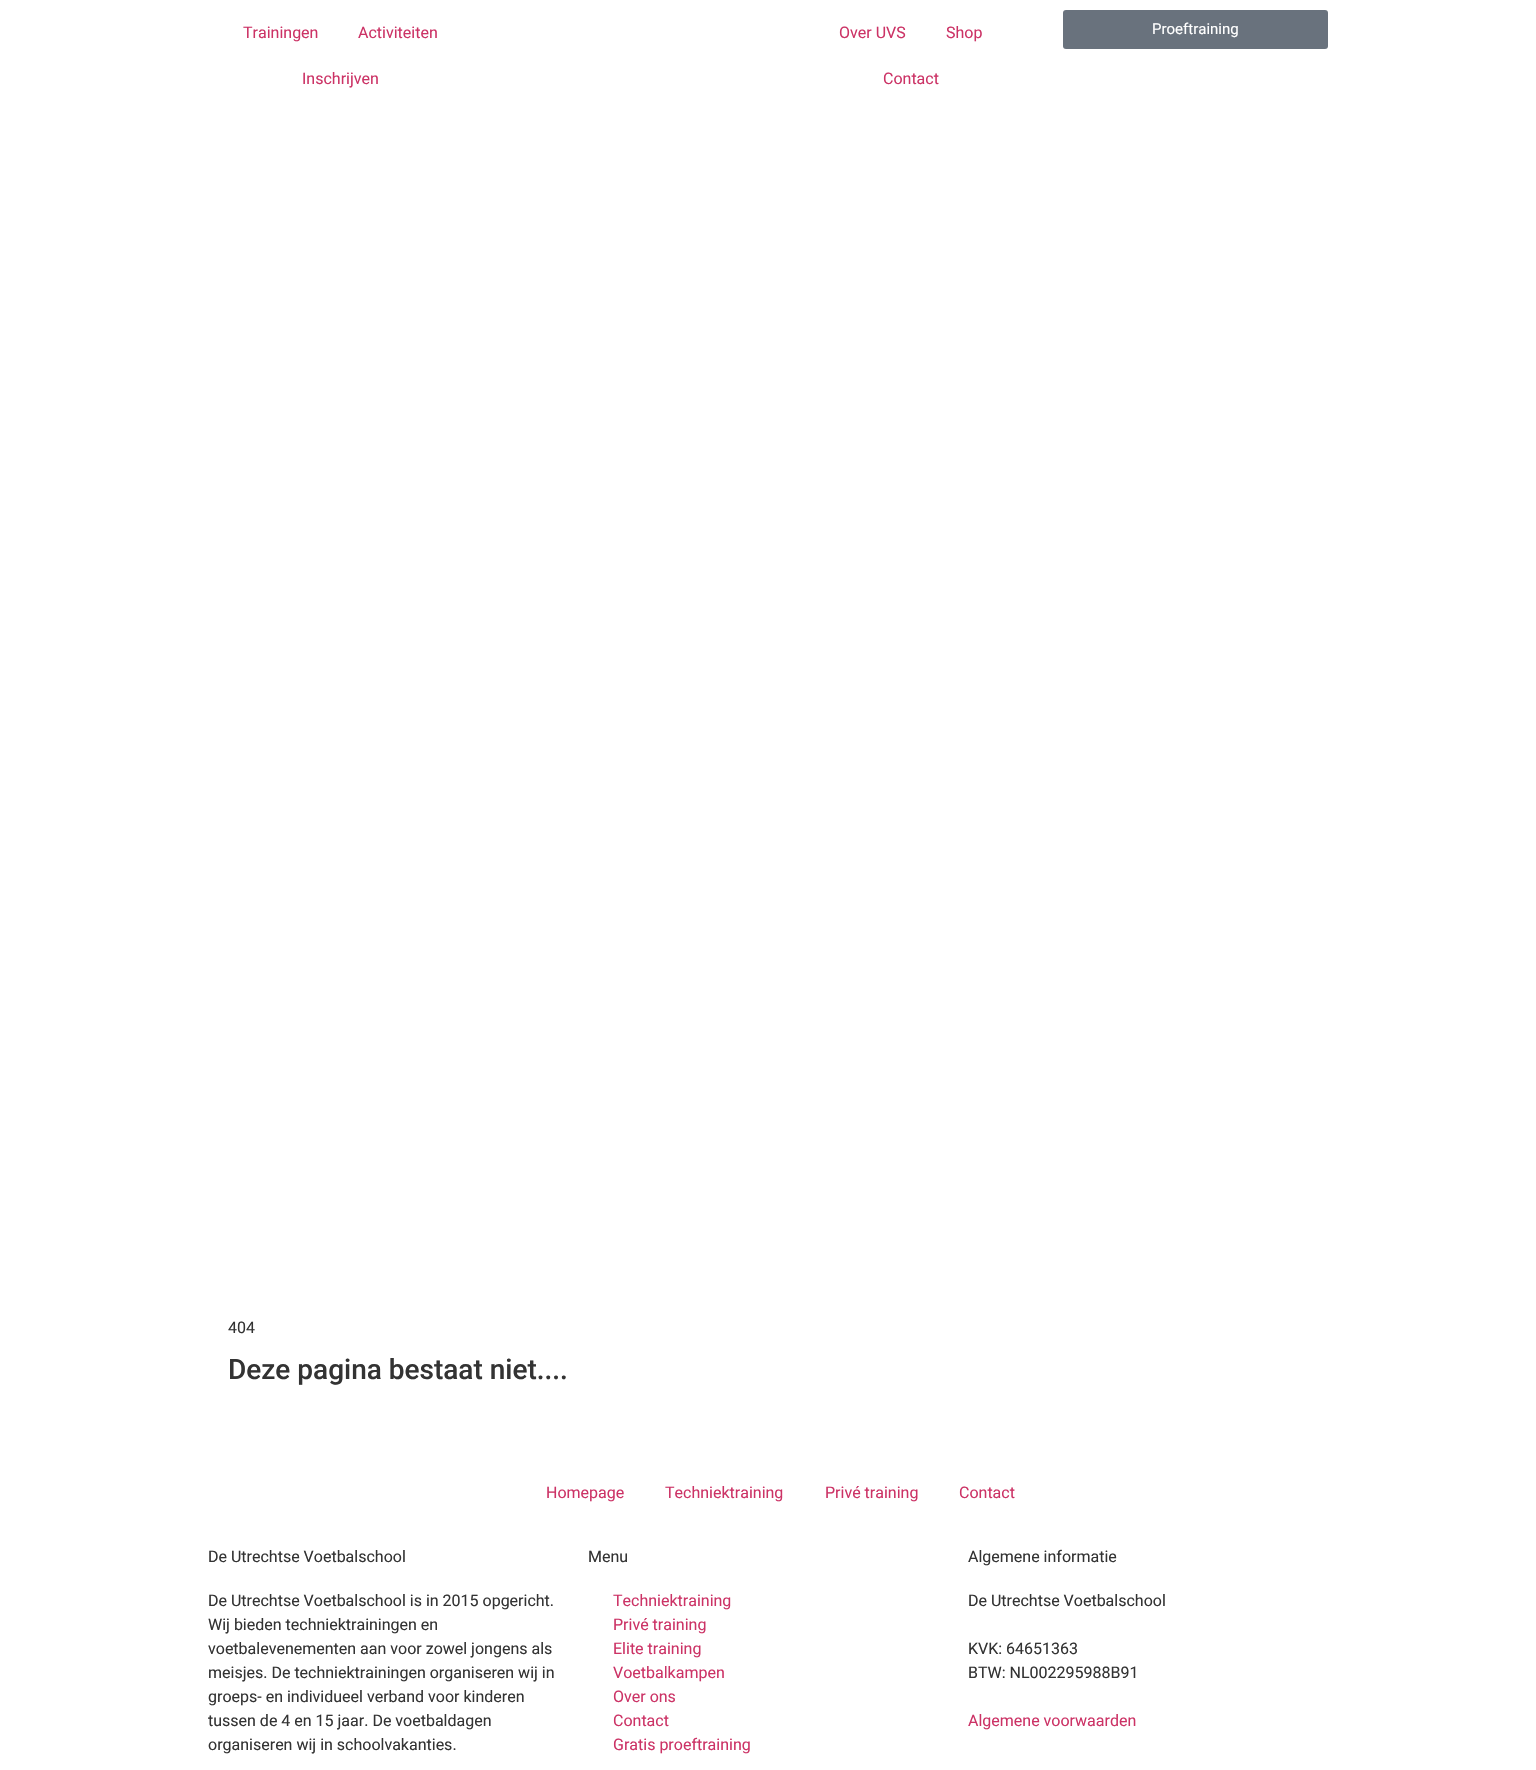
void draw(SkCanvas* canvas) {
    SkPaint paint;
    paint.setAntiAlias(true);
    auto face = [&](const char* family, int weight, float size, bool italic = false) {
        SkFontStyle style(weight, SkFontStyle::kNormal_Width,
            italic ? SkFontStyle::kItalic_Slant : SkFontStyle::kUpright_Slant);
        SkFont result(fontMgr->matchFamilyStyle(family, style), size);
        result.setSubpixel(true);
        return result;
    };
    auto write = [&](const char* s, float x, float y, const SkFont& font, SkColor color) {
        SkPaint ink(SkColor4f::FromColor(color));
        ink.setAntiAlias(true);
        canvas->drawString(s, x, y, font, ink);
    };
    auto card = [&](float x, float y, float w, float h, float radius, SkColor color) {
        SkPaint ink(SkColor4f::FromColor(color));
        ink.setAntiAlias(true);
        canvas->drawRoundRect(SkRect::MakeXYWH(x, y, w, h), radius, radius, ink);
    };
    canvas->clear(SK_ColorWHITE);
    auto kFont1 = face("Roboto", 400, 16);
    write("Trainingen", 243, 38, kFont1, SkColorSetRGB(204, 51, 102));
    write("Activiteiten", 358, 38, kFont1, SkColorSetRGB(204, 51, 102));
    write("Inschrijven", 302, 84, kFont1, SkColorSetRGB(204, 51, 102));
    write("Over UVS", 839, 38, kFont1, SkColorSetRGB(204, 51, 102));
    write("Shop", 946, 38, kFont1, SkColorSetRGB(204, 51, 102));
    write("Contact", 883, 84, kFont1, SkColorSetRGB(204, 51, 102));
    card(1063, 10, 265, 39, 3, SkColorSetRGB(105, 114, 125));
    auto kFont2 = face("Roboto", 400, 15);
    write("Proeftraining", 1152, 34, kFont2, SK_ColorWHITE);
    write("404", 228, 1333, kFont1, SkColorSetRGB(51, 51, 51));
    auto kFont3 = face("Roboto", 500, 28);
    write("Deze pagina bestaat niet....", 228, 1379, kFont3, SkColorSetRGB(51, 51, 51));
    write("Homepage", 546, 1498, kFont1, SkColorSetRGB(204, 51, 102));
    write("Techniektraining", 665, 1498, kFont1, SkColorSetRGB(204, 51, 102));
    write("Privé training", 825, 1498, kFont1, SkColorSetRGB(204, 51, 102));
    write("Contact", 959, 1498, kFont1, SkColorSetRGB(204, 51, 102));
    write("De Utrechtse Voetbalschool", 208, 1562, kFont1, SkColorSetRGB(51, 51, 51));
    write("De Utrechtse Voetbalschool is in 2015 opgericht.", 208, 1606, kFont1, SkColorSetRGB(51, 51, 51));
    write("Wij bieden techniektrainingen en", 208, 1630, kFont1, SkColorSetRGB(51, 51, 51));
    write("voetbalevenementen aan voor zowel jongens als", 208, 1654, kFont1, SkColorSetRGB(51, 51, 51));
    write("meisjes. De techniektrainingen organiseren wij in", 208, 1678, kFont1, SkColorSetRGB(51, 51, 51));
    write("groeps- en individueel verband voor kinderen", 208, 1702, kFont1, SkColorSetRGB(51, 51, 51));
    write("tussen de 4 en 15 jaar. De voetbaldagen", 208, 1726, kFont1, SkColorSetRGB(51, 51, 51));
    write("organiseren wij in schoolvakanties.", 208, 1750, kFont1, SkColorSetRGB(51, 51, 51));
    write("Menu", 588, 1562, kFont1, SkColorSetRGB(51, 51, 51));
    write("Techniektraining", 613, 1606, kFont1, SkColorSetRGB(204, 51, 102));
    write("Privé training", 613, 1630, kFont1, SkColorSetRGB(204, 51, 102));
    write("Elite training", 613, 1654, kFont1, SkColorSetRGB(204, 51, 102));
    write("Voetbalkampen", 613, 1678, kFont1, SkColorSetRGB(204, 51, 102));
    write("Over ons", 613, 1702, kFont1, SkColorSetRGB(204, 51, 102));
    write("Contact", 613, 1726, kFont1, SkColorSetRGB(204, 51, 102));
    write("Gratis proeftraining", 613, 1750, kFont1, SkColorSetRGB(204, 51, 102));
    write("Algemene informatie", 968, 1562, kFont1, SkColorSetRGB(51, 51, 51));
    write("De Utrechtse Voetbalschool", 968, 1606, kFont1, SkColorSetRGB(51, 51, 51));
    write("KVK: 64651363", 968, 1654, kFont1, SkColorSetRGB(51, 51, 51));
    write("BTW: NL002295988B91", 968, 1678, kFont1, SkColorSetRGB(51, 51, 51));
    write("Algemene voorwaarden", 968, 1726, kFont1, SkColorSetRGB(204, 51, 102));
}
